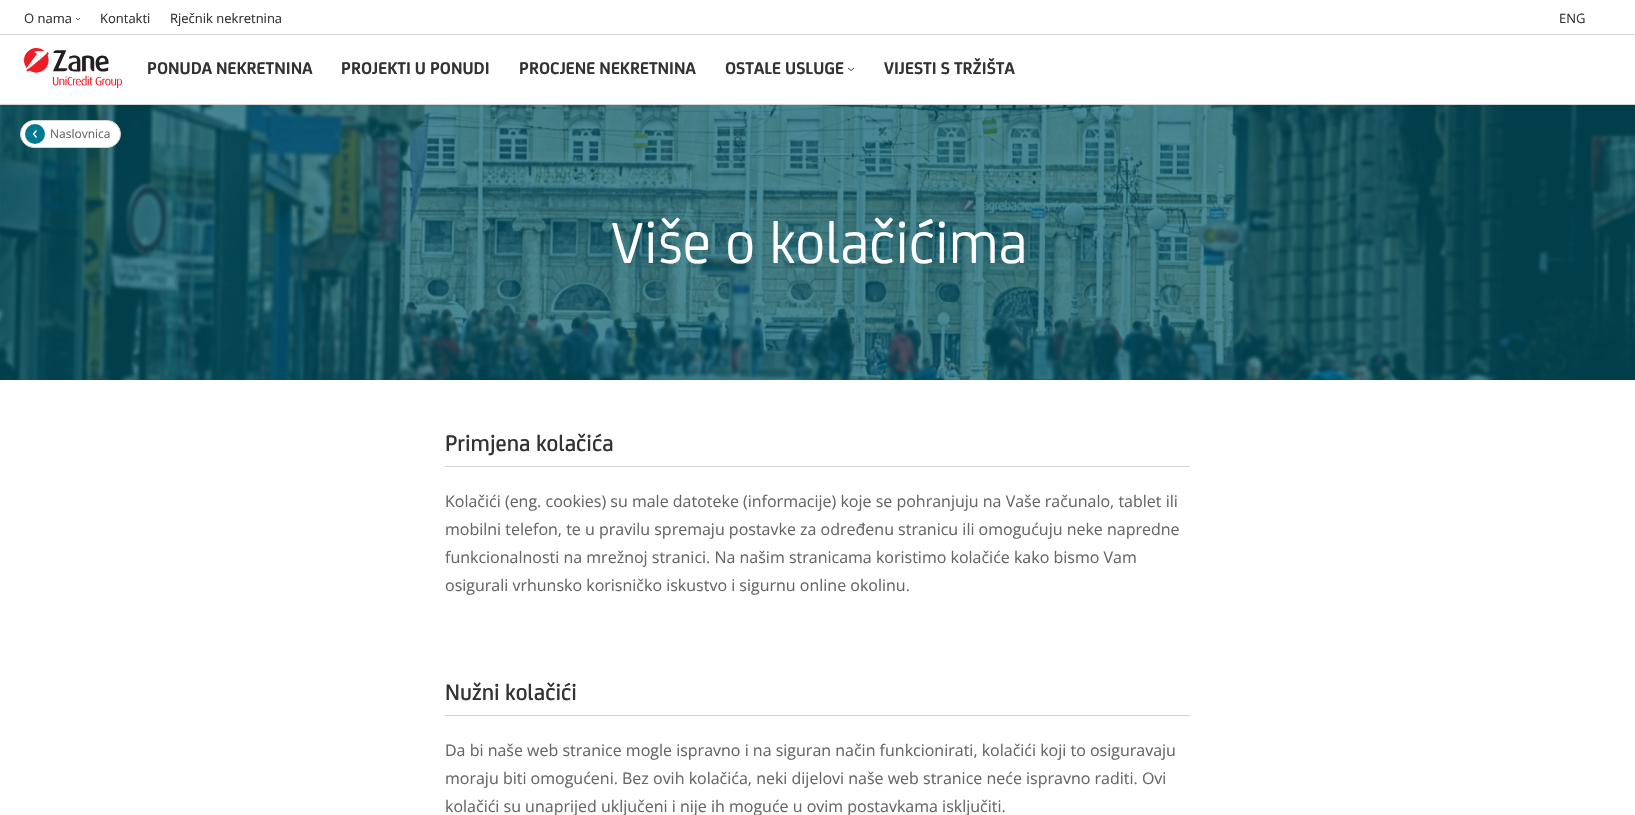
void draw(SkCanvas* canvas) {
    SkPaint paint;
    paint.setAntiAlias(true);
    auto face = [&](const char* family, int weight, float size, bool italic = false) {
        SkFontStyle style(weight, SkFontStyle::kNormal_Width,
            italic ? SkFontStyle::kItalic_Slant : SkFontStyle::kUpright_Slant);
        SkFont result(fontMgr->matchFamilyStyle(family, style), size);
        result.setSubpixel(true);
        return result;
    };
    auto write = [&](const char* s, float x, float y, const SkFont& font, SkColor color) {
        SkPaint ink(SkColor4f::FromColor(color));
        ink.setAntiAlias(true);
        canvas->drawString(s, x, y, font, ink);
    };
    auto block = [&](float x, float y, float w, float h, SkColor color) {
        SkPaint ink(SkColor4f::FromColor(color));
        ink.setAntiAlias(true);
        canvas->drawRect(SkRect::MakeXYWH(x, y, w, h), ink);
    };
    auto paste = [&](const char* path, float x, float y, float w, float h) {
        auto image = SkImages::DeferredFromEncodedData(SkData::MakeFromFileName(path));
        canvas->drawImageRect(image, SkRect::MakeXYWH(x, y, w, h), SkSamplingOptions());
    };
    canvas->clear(SK_ColorWHITE);
    block(0, 34, 1635, 1, SkColorSetRGB(213, 213, 213));
    auto kFont1 = face("Open Sans", 400, 13);
    write("O nama", 24, 23, kFont1, SkColorSetRGB(51, 51, 51));
    paint.setStyle(SkPaint::kStroke_Style);
    paint.setStrokeWidth(1);
    paint.setColor(SkColorSetRGB(100, 100, 100));
    canvas->drawPath(SkPathBuilder().moveTo(80, 18).lineTo(78, 20).lineTo(76, 18).detach(), paint);
    write("Kontakti", 100, 23, kFont1, SkColorSetRGB(51, 51, 51));
    write("Rječnik nekretnina", 170, 23, kFont1, SkColorSetRGB(51, 51, 51));
    write("ENG", 1559, 23, kFont1, SkColorSetRGB(51, 51, 51));
    block(0, 104, 1635, 1, SkColorSetRGB(213, 213, 213));
    paste("pic1.png", 24, 48, 99, 40);
    auto kFont2 = face("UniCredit", 700, 18);
    write("PONUDA NEKRETNINA", 147, 74, kFont2, SkColorSetRGB(51, 51, 51));
    write("PROJEKTI U PONUDI", 341, 74, kFont2, SkColorSetRGB(51, 51, 51));
    write("PROCJENE NEKRETNINA", 519, 74, kFont2, SkColorSetRGB(51, 51, 51));
    write("OSTALE USLUGE", 725, 74, kFont2, SkColorSetRGB(51, 51, 51));
    paint.setColor(SkColorSetRGB(51, 51, 51));
    canvas->drawPath(SkPathBuilder().moveTo(854, 68).lineTo(851, 70.5f).lineTo(848, 68).detach(), paint);
    write("VIJESTI S TRŽIŠTA", 884, 74, kFont2, SkColorSetRGB(51, 51, 51));
    paste("pic2.png", 0, 105, 1635, 275);
    paint.setStyle(SkPaint::kFill_Style);
    paint.setColor(SK_ColorWHITE);
    canvas->drawRoundRect(SkRect::MakeXYWH(20.5f, 120.5f, 100, 27), 13.5f, 13.5f, paint);
    paint.setStyle(SkPaint::kStroke_Style);
    paint.setColor(SkColorSetRGB(213, 213, 213));
    canvas->drawRoundRect(SkRect::MakeXYWH(20.5f, 120.5f, 100, 27), 13.5f, 13.5f, paint);
    paint.setStyle(SkPaint::kFill_Style);
    paint.setColor(SkColorSetRGB(0, 122, 145));
    canvas->drawCircle(35, 134, 10, paint);
    paint.setStyle(SkPaint::kStroke_Style);
    paint.setStrokeWidth(1.4f);
    paint.setColor(SK_ColorWHITE);
    canvas->drawPath(SkPathBuilder().moveTo(36.5f, 137.5f).lineTo(33.5f, 134).lineTo(36.5f, 130.5f).detach(), paint);
    auto kFont3 = face("Open Sans", 400, 12);
    write("Naslovnica", 50, 138, kFont3, SkColorSetRGB(102, 102, 102));
    auto kFont4 = face("UniCredit", 400, 62);
    write("Više o kolačićima", 611, 263, kFont4, SK_ColorWHITE);
    block(445, 466, 745, 1, SkColorSetRGB(213, 213, 213));
    auto kFont5 = face("UniCredit", 500, 24);
    write("Primjena kolačića", 445, 451, kFont5, SkColorSetRGB(51, 51, 51));
    auto kFont6 = face("Open Sans", 400, 16);
    write("Kolačići (eng. cookies) su male datoteke (informacije) koje se pohranjuju na Vaše računalo, tablet ili", 445, 507, kFont6, SkColorSetRGB(102, 102, 102));
    write("mobilni telefon, te u pravilu spremaju postavke za određenu stranicu ili omogućuju neke napredne", 445, 535, kFont6, SkColorSetRGB(102, 102, 102));
    write("funkcionalnosti na mrežnoj stranici. Na našim stranicama koristimo kolačiće kako bismo Vam", 445, 563, kFont6, SkColorSetRGB(102, 102, 102));
    write("osigurali vrhunsko korisničko iskustvo i sigurnu online okolinu.", 445, 591, kFont6, SkColorSetRGB(102, 102, 102));
    block(445, 715, 745, 1, SkColorSetRGB(213, 213, 213));
    write("Nužni kolačići", 445, 700, kFont5, SkColorSetRGB(51, 51, 51));
    write("Da bi naše web stranice mogle ispravno i na siguran način funkcionirati, kolačići koji to osiguravaju", 445, 756, kFont6, SkColorSetRGB(102, 102, 102));
    write("moraju biti omogućeni. Bez ovih kolačića, neki dijelovi naše web stranice neće ispravno raditi. Ovi", 445, 784, kFont6, SkColorSetRGB(102, 102, 102));
    write("kolačići su unaprijed uključeni i nije ih moguće u ovim postavkama isključiti.", 445, 812, kFont6, SkColorSetRGB(102, 102, 102));
}
